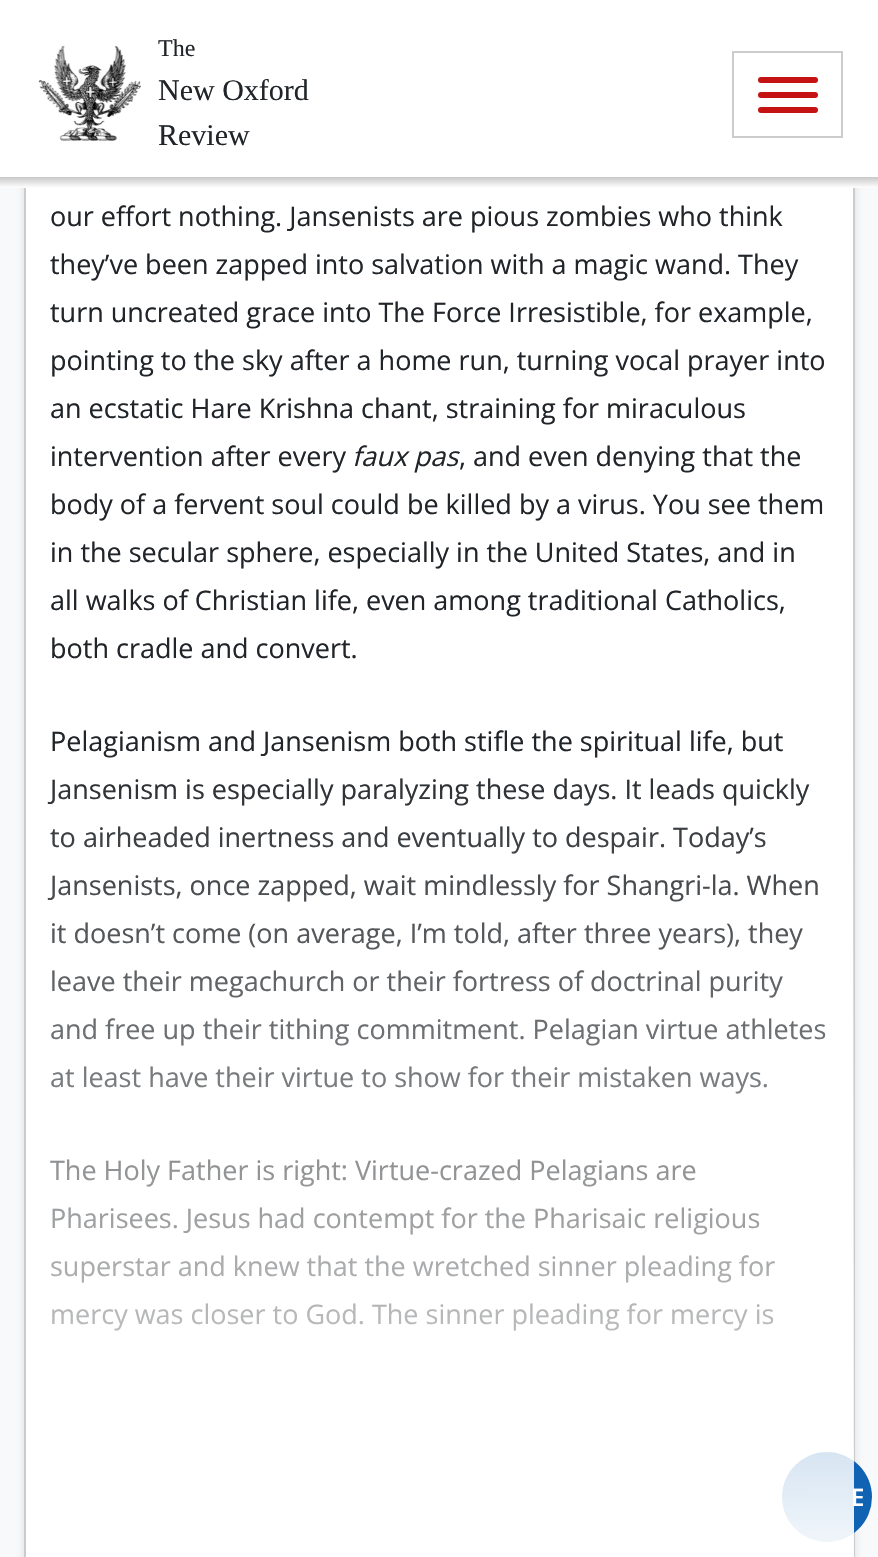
void draw(SkCanvas* canvas) {
    SkPaint paint;
    paint.setAntiAlias(true);
    auto face = [&](const char* family, int weight, float size, bool italic = false) {
        SkFontStyle style(weight, SkFontStyle::kNormal_Width,
            italic ? SkFontStyle::kItalic_Slant : SkFontStyle::kUpright_Slant);
        SkFont result(fontMgr->matchFamilyStyle(family, style), size);
        result.setSubpixel(true);
        return result;
    };
    auto write = [&](const char* s, float x, float y, const SkFont& font, SkColor color) {
        SkPaint ink(SkColor4f::FromColor(color));
        ink.setAntiAlias(true);
        canvas->drawString(s, x, y, font, ink);
    };
    auto block = [&](float x, float y, float w, float h, SkColor color) {
        SkPaint ink(SkColor4f::FromColor(color));
        ink.setAntiAlias(true);
        canvas->drawRect(SkRect::MakeXYWH(x, y, w, h), ink);
    };
    auto card = [&](float x, float y, float w, float h, float radius, SkColor color) {
        SkPaint ink(SkColor4f::FromColor(color));
        ink.setAntiAlias(true);
        canvas->drawRoundRect(SkRect::MakeXYWH(x, y, w, h), radius, radius, ink);
    };
    auto paste = [&](const char* path, float x, float y, float w, float h) {
        auto image = SkImages::DeferredFromEncodedData(SkData::MakeFromFileName(path));
        canvas->drawImageRect(image, SkRect::MakeXYWH(x, y, w, h), SkSamplingOptions());
    };
    canvas->clear(SkColorSetRGB(248, 249, 250));
    paint.setColor(SkColorSetARGB(181, 211, 211, 211));
    paint.setMaskFilter(SkMaskFilter::MakeBlur(kNormal_SkBlurStyle, 4));
    canvas->drawRect(SkRect::MakeXYWH(24, -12, 831, 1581), paint);
    paint.setMaskFilter(nullptr);
    block(26, 188, 827, 1369, SK_ColorWHITE);
    paint.setStyle(SkPaint::kStroke_Style);
    paint.setStrokeWidth(2);
    paint.setColor(SkColorSetRGB(204, 204, 204));
    canvas->drawRect(SkRect::MakeXYWH(25, -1, 829, 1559), paint);
    block(0, 0, 878, 177, SK_ColorWHITE);
    paste("pic1.png", 38, 45, 103, 96);
    auto kFont1 = face("Liberation Serif", 400, 24);
    write("The", 158, 56, kFont1, SkColorSetRGB(33, 37, 41));
    auto kFont2 = face("Liberation Serif", 400, 30);
    write("New Oxford", 158, 100, kFont2, SkColorSetRGB(33, 37, 41));
    write("Review", 158, 145, kFont2, SkColorSetRGB(33, 37, 41));
    canvas->drawRect(SkRect::MakeXYWH(733, 52, 109, 85), paint);
    card(758, 92, 60, 6, 3, SkColorSetRGB(197, 18, 18));
    card(758, 77, 60, 6, 3, SkColorSetRGB(197, 18, 18));
    card(758, 107, 60, 6, 3, SkColorSetRGB(197, 18, 18));
    paint.setStyle(SkPaint::kFill_Style);
    {
        const SkColor colors[] = {SkColorSetRGB(201, 201, 201), SK_ColorWHITE};
        const float stops[] = {0, 1};
        const SkPoint ends[] = {{440, 177}, {440, 188}};
        paint.setShader(SkGradientShader::MakeLinear(ends, colors, stops, 2, SkTileMode::kClamp));
        paint.setAlpha(255);
    }
    canvas->drawRect(SkRect::MakeXYWH(0, 177, 878, 11), paint);
    auto kFont3 = face("Open Sans", 400, 27);
    write("our effort nothing. Jansenists are pious zombies who think", 50, 226, kFont3, SkColorSetRGB(33, 37, 41));
    write("they’ve been zapped into salvation with a magic wand. They", 50, 274, kFont3, SkColorSetRGB(33, 37, 41));
    write("turn uncreated grace into The Force Irresistible, for example,", 50, 322, kFont3, SkColorSetRGB(33, 37, 41));
    write("pointing to the sky after a home run, turning vocal prayer into", 50, 370, kFont3, SkColorSetRGB(33, 37, 41));
    write("an ecstatic Hare Krishna chant, straining for miraculous", 50, 418, kFont3, SkColorSetRGB(33, 37, 41));
    write("intervention after every", 50, 466, kFont3, SkColorSetRGB(33, 37, 41));
    auto kFont4 = face("Open Sans", 400, 27, true);
    write("faux pas", 352, 466, kFont4, SkColorSetRGB(33, 37, 41));
    write(", and even denying that the", 459, 466, kFont3, SkColorSetRGB(33, 37, 41));
    write("body of a fervent soul could be killed by a virus. You see them", 50, 514, kFont3, SkColorSetRGB(33, 37, 41));
    write("in the secular sphere, especially in the United States, and in", 50, 562, kFont3, SkColorSetRGB(33, 37, 41));
    write("all walks of Christian life, even among traditional Catholics,", 50, 610, kFont3, SkColorSetRGB(33, 37, 41));
    write("both cradle and convert.", 50, 658, kFont3, SkColorSetRGB(33, 37, 41));
    write("Pelagianism and Jansenism both stifle the spiritual life, but", 50, 751, kFont3, SkColorSetRGB(33, 37, 41));
    write("Jansenism is especially paralyzing these days. It leads quickly", 50, 799, kFont3, SkColorSetRGB(33, 37, 41));
    write("to airheaded inertness and eventually to despair. Today’s", 50, 847, kFont3, SkColorSetRGB(33, 37, 41));
    write("Jansenists, once zapped, wait mindlessly for Shangri-la. When", 50, 895, kFont3, SkColorSetRGB(33, 37, 41));
    write("it doesn’t come (on average, I’m told, after three years), they", 50, 943, kFont3, SkColorSetRGB(33, 37, 41));
    write("leave their megachurch or their fortress of doctrinal purity", 50, 991, kFont3, SkColorSetRGB(33, 37, 41));
    write("and free up their tithing commitment. Pelagian virtue athletes", 50, 1039, kFont3, SkColorSetRGB(33, 37, 41));
    write("at least have their virtue to show for their mistaken ways.", 50, 1087, kFont3, SkColorSetRGB(33, 37, 41));
    write("The Holy Father is right: Virtue-crazed Pelagians are", 50, 1180, kFont3, SkColorSetRGB(33, 37, 41));
    write("Pharisees. Jesus had contempt for the Pharisaic religious", 50, 1228, kFont3, SkColorSetRGB(33, 37, 41));
    write("superstar and knew that the wretched sinner pleading for", 50, 1276, kFont3, SkColorSetRGB(33, 37, 41));
    write("mercy was closer to God. The sinner pleading for mercy is", 50, 1324, kFont3, SkColorSetRGB(33, 37, 41));
    paint.setShader(nullptr);
    paint.setColor(SkColorSetRGB(16, 98, 179));
    canvas->drawCircle(827, 1497, 45, paint);
    auto kFont5 = face("Open Sans", 600, 24);
    write("E", 851, 1506, kFont5, SK_ColorWHITE);
    {
        const SkColor colors[] = {SkColorSetARGB(0, 255, 255, 255), SK_ColorWHITE};
        const float stops[] = {0, 0.9f};
        const SkPoint ends[] = {{439, 735}, {440, 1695}};
        paint.setShader(SkGradientShader::MakeLinear(ends, colors, stops, 2, SkTileMode::kClamp));
        paint.setAlpha(255);
    }
    canvas->drawRect(SkRect::MakeXYWH(47, 753, 807, 804), paint);
}
